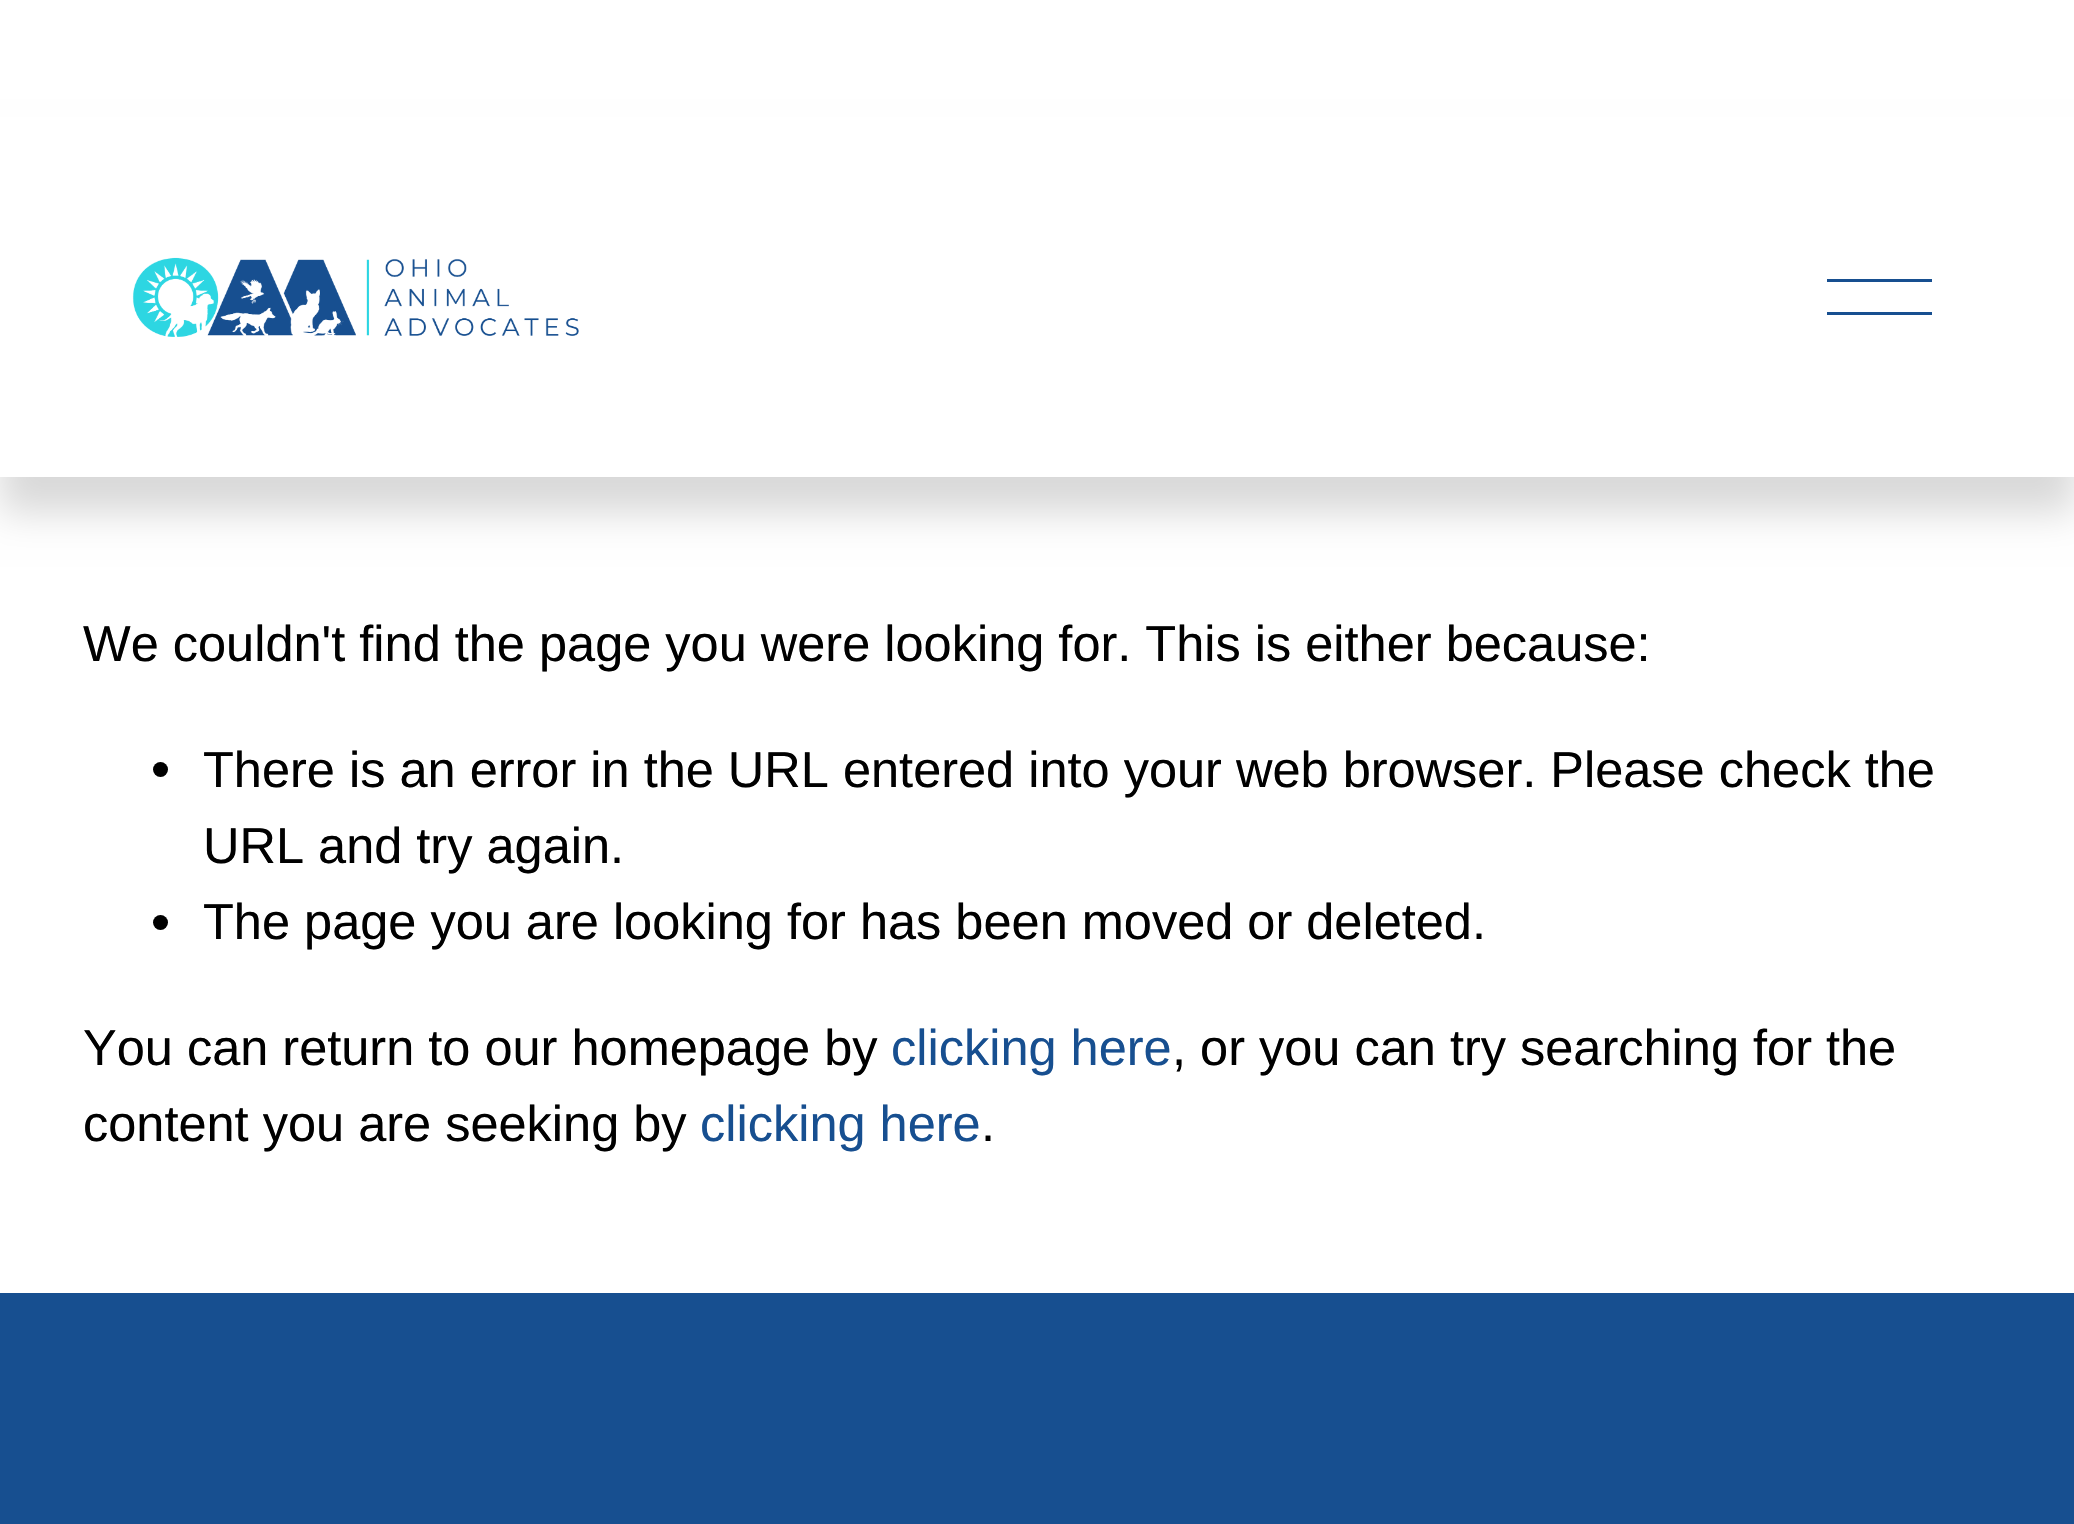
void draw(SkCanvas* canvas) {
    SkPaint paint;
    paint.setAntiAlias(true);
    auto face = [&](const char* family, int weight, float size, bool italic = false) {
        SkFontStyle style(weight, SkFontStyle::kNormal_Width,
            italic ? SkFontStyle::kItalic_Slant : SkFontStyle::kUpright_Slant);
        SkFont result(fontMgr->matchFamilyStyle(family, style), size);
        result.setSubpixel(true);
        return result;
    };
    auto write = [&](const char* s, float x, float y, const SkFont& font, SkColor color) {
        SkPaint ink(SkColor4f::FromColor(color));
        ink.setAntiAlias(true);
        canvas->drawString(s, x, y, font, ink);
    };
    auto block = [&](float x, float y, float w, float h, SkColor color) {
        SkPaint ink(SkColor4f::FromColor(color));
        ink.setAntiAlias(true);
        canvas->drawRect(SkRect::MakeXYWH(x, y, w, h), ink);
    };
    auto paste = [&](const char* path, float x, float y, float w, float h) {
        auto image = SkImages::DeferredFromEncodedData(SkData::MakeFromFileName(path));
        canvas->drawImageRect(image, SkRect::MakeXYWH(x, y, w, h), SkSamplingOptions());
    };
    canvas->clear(SK_ColorWHITE);
    canvas->save();
    canvas->clipPath(SkPathBuilder(SkPathFillType::kEvenOdd).moveTo(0, 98).lineTo(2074, 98).lineTo(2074, 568).lineTo(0, 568).close().moveTo(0, 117).lineTo(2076, 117).lineTo(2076, 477).lineTo(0, 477).close().detach(), true);
    paint.setColor(SkColorSetRGB(217, 217, 217));
    paint.setMaskFilter(SkMaskFilter::MakeBlur(kNormal_SkBlurStyle, 18));
    canvas->drawRect(SkRect::MakeXYWH(0, 153, 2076, 360), paint);
    paint.setMaskFilter(nullptr);
    canvas->restore();
    paste("pic1.png", 132, 257, 447, 80);
    block(1827, 279, 105, 3, SkColorSetRGB(23, 79, 144));
    block(1827, 312, 105, 3, SkColorSetRGB(23, 79, 144));
    auto kFont1 = face("Liberation Sans", 400, 50.5f);
    write("We couldn't find the page you were looking for. This is either because:", 83, 661, kFont1, SK_ColorBLACK);
    paint.setColor(SK_ColorBLACK);
    canvas->drawCircle(160.5f, 769.5f, 7.5f, paint);
    write("There is an error in the URL entered into your web browser. Please check the", 203, 787, kFont1, SK_ColorBLACK);
    write("URL and try again.", 203, 863, kFont1, SK_ColorBLACK);
    canvas->drawCircle(160.5f, 922.5f, 7.5f, paint);
    write("The page you are looking for has been moved or deleted.", 203, 939, kFont1, SK_ColorBLACK);
    write("You can return to our homepage by", 83, 1065, kFont1, SK_ColorBLACK);
    write("clicking here", 891, 1065, kFont1, SkColorSetRGB(23, 79, 144));
    write(", or you can try searching for the", 1172, 1065, kFont1, SK_ColorBLACK);
    write("content you are seeking by", 83, 1141, kFont1, SK_ColorBLACK);
    write("clicking here", 700, 1141, kFont1, SkColorSetRGB(23, 79, 144));
    write(".", 981, 1141, kFont1, SK_ColorBLACK);
    block(0, 1293, 2074, 231, SkColorSetRGB(23, 79, 144));
}
